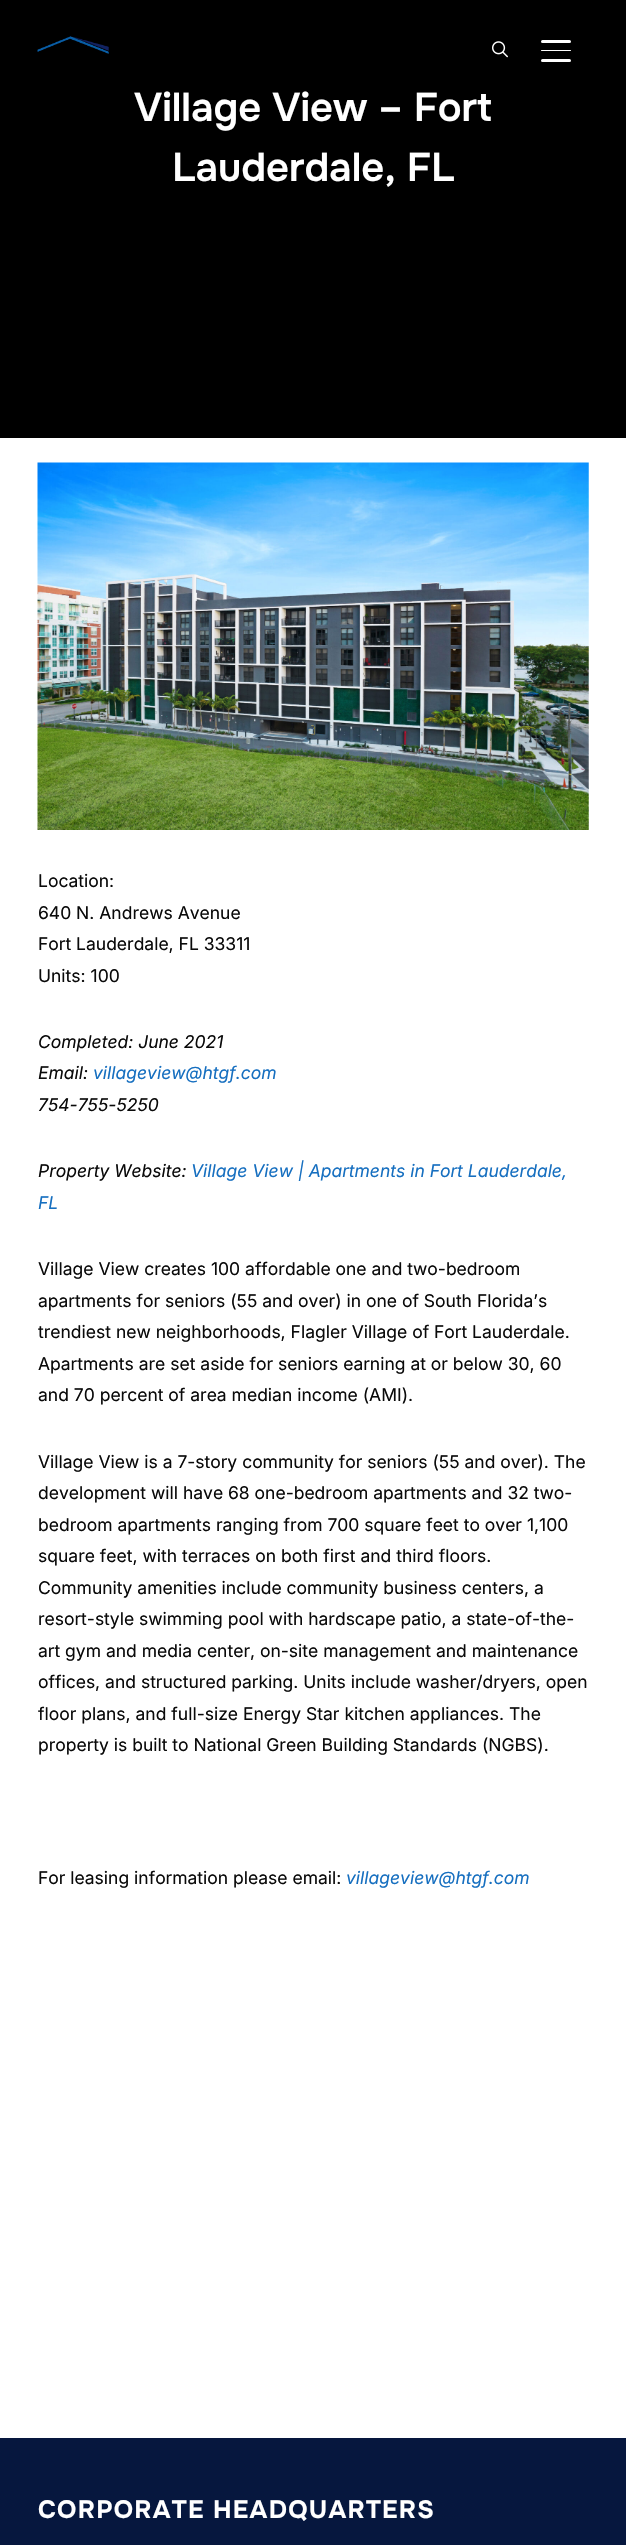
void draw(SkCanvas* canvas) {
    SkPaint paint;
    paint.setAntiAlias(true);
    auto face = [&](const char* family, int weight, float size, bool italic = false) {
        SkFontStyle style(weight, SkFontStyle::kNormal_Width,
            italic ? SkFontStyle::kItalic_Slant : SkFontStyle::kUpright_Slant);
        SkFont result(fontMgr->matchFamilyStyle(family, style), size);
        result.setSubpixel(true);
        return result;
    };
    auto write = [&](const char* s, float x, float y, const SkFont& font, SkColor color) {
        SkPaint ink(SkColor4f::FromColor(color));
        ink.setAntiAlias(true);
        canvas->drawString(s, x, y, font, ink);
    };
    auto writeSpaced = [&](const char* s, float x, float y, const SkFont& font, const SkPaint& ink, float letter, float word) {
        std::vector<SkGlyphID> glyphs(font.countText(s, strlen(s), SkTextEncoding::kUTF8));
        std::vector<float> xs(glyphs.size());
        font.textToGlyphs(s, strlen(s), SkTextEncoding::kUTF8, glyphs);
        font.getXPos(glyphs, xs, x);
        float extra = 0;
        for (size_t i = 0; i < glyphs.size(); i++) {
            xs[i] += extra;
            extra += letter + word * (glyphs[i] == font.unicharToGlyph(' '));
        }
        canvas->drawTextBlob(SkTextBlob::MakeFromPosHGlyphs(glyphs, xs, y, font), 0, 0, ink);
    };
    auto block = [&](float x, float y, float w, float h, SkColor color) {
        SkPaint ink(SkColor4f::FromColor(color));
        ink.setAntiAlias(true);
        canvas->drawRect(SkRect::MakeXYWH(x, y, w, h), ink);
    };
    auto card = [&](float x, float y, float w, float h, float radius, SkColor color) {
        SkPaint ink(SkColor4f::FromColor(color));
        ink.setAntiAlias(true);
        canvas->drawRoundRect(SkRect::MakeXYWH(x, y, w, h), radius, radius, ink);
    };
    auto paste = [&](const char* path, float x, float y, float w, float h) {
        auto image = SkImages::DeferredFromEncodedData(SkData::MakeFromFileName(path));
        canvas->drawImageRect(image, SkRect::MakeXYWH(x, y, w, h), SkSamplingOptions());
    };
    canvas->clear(SK_ColorWHITE);
    block(0, 0, 626, 438, SK_ColorBLACK);
    {
        const SkColor colors[] = {SkColorSetARGB(51, 0, 0, 0), SkColorSetARGB(0, 0, 0, 0)};
        const float stops[] = {0.01f, 1};
        const SkPoint ends[] = {{313, 0}, {313, 116}};
        paint.setShader(SkGradientShader::MakeLinear(ends, colors, stops, 2, SkTileMode::kClamp));
        paint.setAlpha(255);
    }
    canvas->drawRect(SkRect::MakeXYWH(135, 91, 356, 13), paint);
    paste("pic1.png", 37, 36, 72, 18);
    paste("pic2.png", 492, 41, 16, 17);
    card(541, 40, 30, 3, 1.5f, SK_ColorWHITE);
    card(541, 50, 30, 1, 0.5f, SK_ColorWHITE);
    card(541, 59, 30, 3, 1.5f, SK_ColorWHITE);
    auto kFont1 = face("Onest", 600, 40);
    write("Village View – Fort", 134, 121, kFont1, SK_ColorWHITE);
    write("Lauderdale, FL", 172, 181, kFont1, SK_ColorWHITE);
    paste("pic3.png", 37, 462, 552, 368);
    auto kFont2 = face("Inter", 400, 17.5f);
    write("Location:", 38, 887, kFont2, SkColorSetRGB(10, 10, 10));
    write("640 N. Andrews Avenue", 38, 919, kFont2, SkColorSetRGB(10, 10, 10));
    write("Fort Lauderdale, FL 33311", 38, 950, kFont2, SkColorSetRGB(10, 10, 10));
    write("Units: 100", 38, 982, kFont2, SkColorSetRGB(10, 10, 10));
    auto kFont3 = face("Inter", 400, 17.5f, true);
    write("Completed: June 2021", 38, 1048, kFont3, SkColorSetRGB(10, 10, 10));
    write("Email:", 38, 1079, kFont3, SkColorSetRGB(10, 10, 10));
    write("villageview@htgf.com", 93, 1079, kFont3, SkColorSetRGB(22, 111, 192));
    write("754-755-5250", 38, 1111, kFont3, SkColorSetRGB(10, 10, 10));
    write("Property Website:", 38, 1177, kFont3, SkColorSetRGB(10, 10, 10));
    write("Village View | Apartments in Fort Lauderdale,", 191, 1177, kFont3, SkColorSetRGB(22, 111, 192));
    write("FL", 38, 1209, kFont3, SkColorSetRGB(22, 111, 192));
    write("Village View creates 100 affordable one and two-bedroom", 38, 1275, kFont2, SkColorSetRGB(10, 10, 10));
    write("apartments for seniors (55 and over) in one of South Florida’s", 38, 1307, kFont2, SkColorSetRGB(10, 10, 10));
    write("trendiest new neighborhoods, Flagler Village of Fort Lauderdale.", 38, 1338, kFont2, SkColorSetRGB(10, 10, 10));
    write("Apartments are set aside for seniors earning at or below 30, 60", 38, 1370, kFont2, SkColorSetRGB(10, 10, 10));
    write("and 70 percent of area median income (AMI).", 38, 1401, kFont2, SkColorSetRGB(10, 10, 10));
    write("Village View is a 7-story community for seniors (55 and over). The", 38, 1468, kFont2, SkColorSetRGB(10, 10, 10));
    write("development will have 68 one-bedroom apartments and 32 two-", 38, 1499, kFont2, SkColorSetRGB(10, 10, 10));
    write("bedroom apartments ranging from 700 square feet to over 1,100", 38, 1531, kFont2, SkColorSetRGB(10, 10, 10));
    write("square feet, with terraces on both first and third floors.", 38, 1562, kFont2, SkColorSetRGB(10, 10, 10));
    write("Community amenities include community business centers, a", 38, 1594, kFont2, SkColorSetRGB(10, 10, 10));
    write("resort-style swimming pool with hardscape patio, a state-of-the-", 38, 1625, kFont2, SkColorSetRGB(10, 10, 10));
    write("art gym and media center, on-site management and maintenance", 38, 1657, kFont2, SkColorSetRGB(10, 10, 10));
    write("offices, and structured parking. Units include washer/dryers, open", 38, 1688, kFont2, SkColorSetRGB(10, 10, 10));
    write("floor plans, and full-size Energy Star kitchen appliances. The", 38, 1720, kFont2, SkColorSetRGB(10, 10, 10));
    write("property is built to National Green Building Standards (NGBS).", 38, 1751, kFont2, SkColorSetRGB(10, 10, 10));
    write("For leasing information please email:", 38, 1884, kFont2, SkColorSetRGB(10, 10, 10));
    write("villageview@htgf.com", 346, 1884, kFont3, SkColorSetRGB(22, 111, 192));
    block(0, 2438, 626, 107, SkColorSetRGB(6, 23, 62));
    auto kFont4 = face("Onest", 700, 25);
    paint.setShader(nullptr);
    paint.setColor(SK_ColorWHITE);
    writeSpaced("CORPORATE HEADQUARTERS", 38, 2518, kFont4, paint, 1.25f, 0);
}
